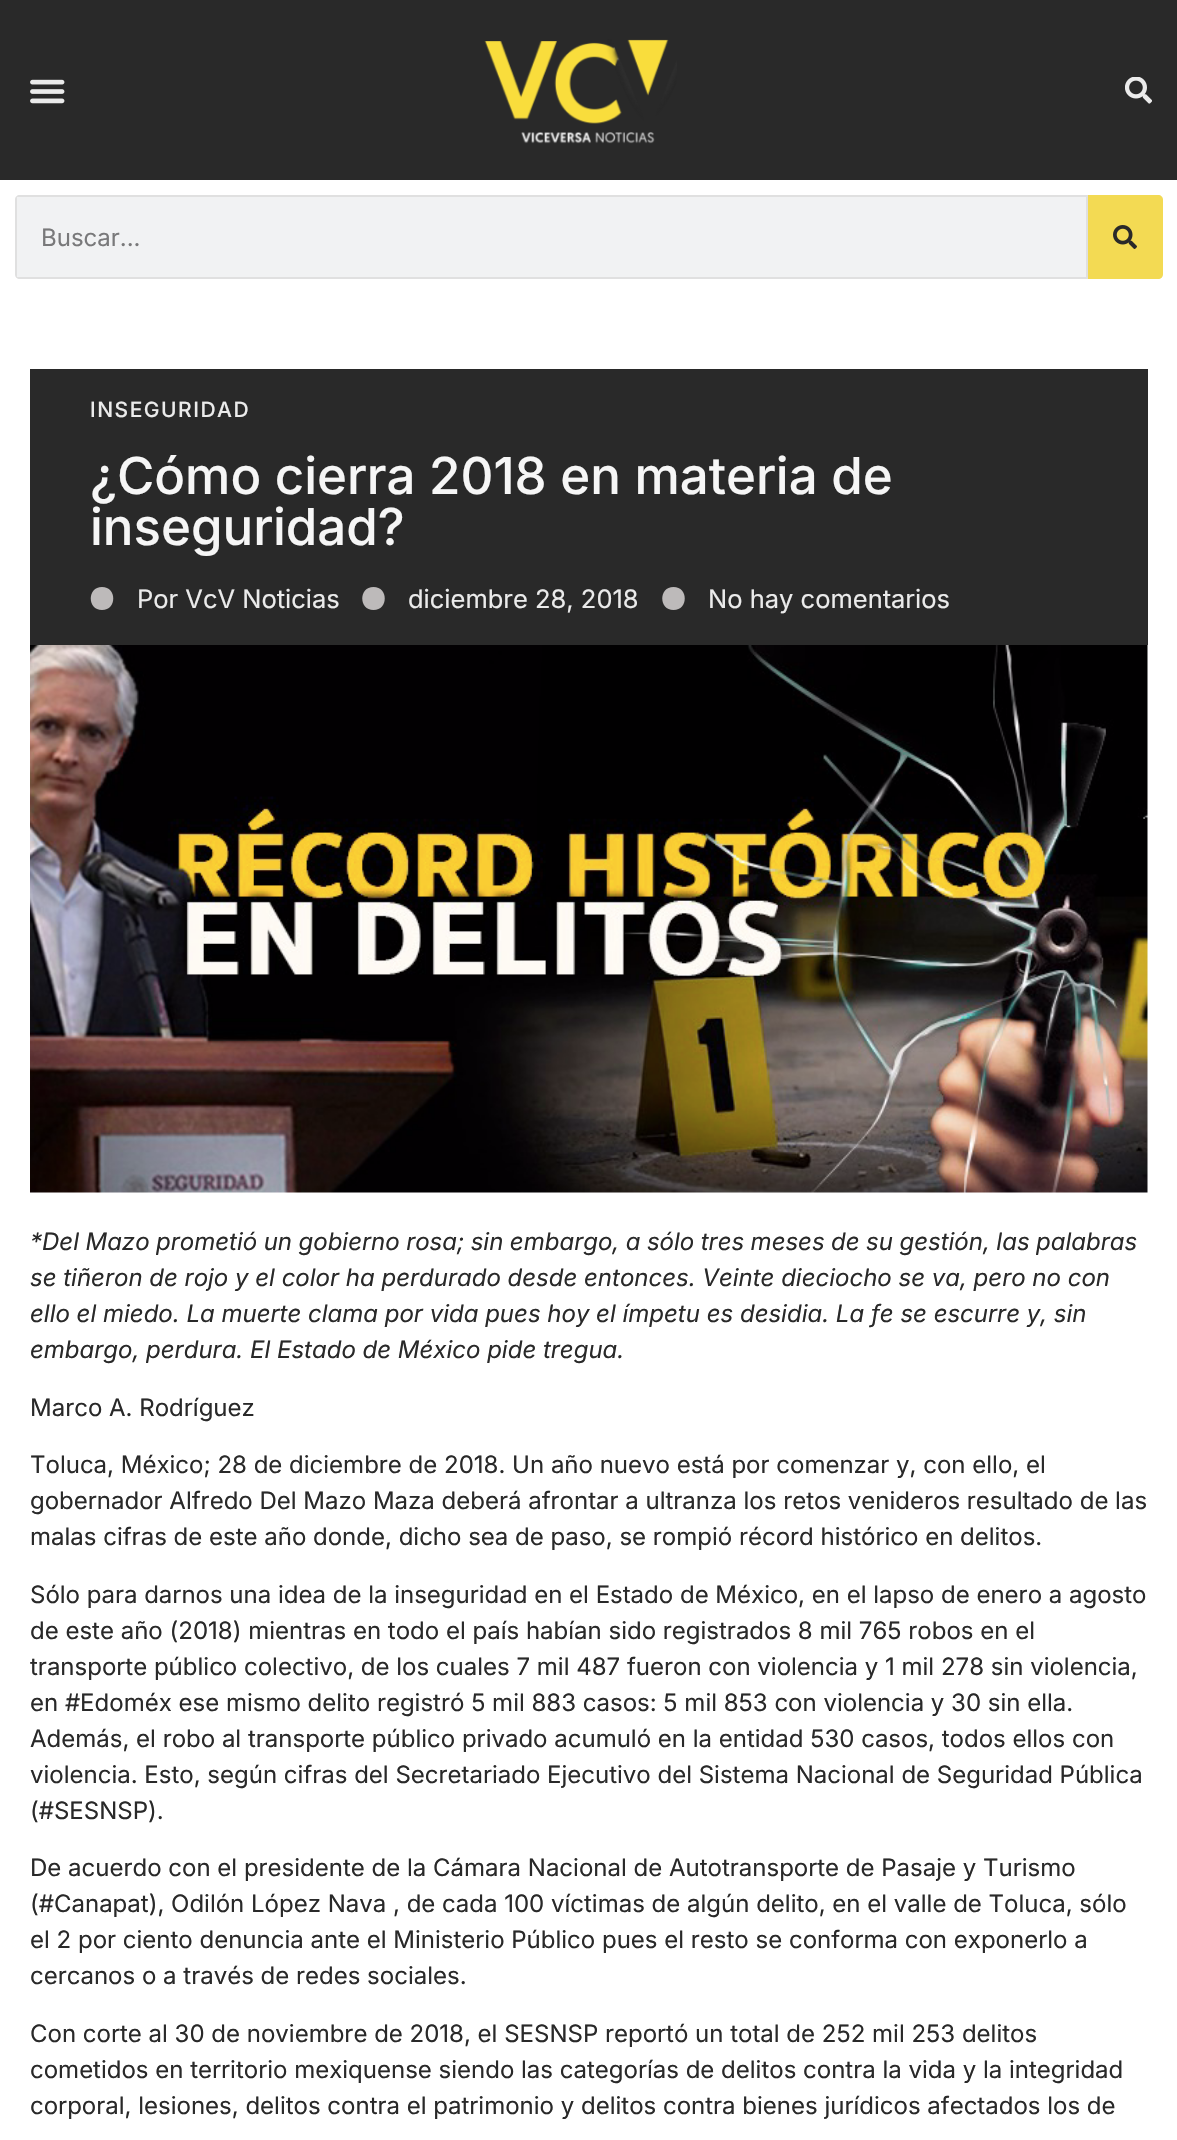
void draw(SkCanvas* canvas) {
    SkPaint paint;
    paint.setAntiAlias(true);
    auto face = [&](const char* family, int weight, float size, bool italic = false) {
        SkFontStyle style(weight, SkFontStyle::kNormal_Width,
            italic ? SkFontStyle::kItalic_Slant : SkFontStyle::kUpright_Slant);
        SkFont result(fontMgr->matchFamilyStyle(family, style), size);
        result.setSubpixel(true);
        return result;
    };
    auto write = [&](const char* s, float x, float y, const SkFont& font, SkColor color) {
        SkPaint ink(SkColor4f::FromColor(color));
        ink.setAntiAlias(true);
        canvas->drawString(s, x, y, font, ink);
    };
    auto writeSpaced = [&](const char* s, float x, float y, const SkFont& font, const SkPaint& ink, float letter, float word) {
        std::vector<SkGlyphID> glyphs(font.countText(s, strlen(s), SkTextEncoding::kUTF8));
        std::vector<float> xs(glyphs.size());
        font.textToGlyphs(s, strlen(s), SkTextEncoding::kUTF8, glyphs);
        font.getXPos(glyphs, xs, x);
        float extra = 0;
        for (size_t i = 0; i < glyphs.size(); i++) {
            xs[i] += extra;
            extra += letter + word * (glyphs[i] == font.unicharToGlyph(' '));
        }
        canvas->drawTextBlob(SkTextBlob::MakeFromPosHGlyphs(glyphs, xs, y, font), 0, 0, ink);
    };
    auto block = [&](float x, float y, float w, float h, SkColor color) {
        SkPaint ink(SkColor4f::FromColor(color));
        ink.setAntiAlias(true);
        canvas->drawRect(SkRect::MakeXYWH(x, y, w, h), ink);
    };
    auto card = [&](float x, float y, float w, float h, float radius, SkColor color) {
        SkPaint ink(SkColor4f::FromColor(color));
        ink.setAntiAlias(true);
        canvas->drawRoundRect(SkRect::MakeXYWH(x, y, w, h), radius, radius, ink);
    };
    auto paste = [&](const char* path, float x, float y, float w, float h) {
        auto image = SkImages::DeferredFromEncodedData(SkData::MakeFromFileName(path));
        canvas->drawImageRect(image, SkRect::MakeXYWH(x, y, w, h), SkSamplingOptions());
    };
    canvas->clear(SK_ColorWHITE);
    block(0, 0, 1177, 180, SkColorSetRGB(41, 41, 41));
    paste("pic1.png", 30, 79, 35, 25);
    paste("pic2.png", 484, 39, 193, 105);
    paste("pic3.png", 1125, 77, 27, 27);
    card(15, 195, 1148, 84, 5, SkColorSetRGB(241, 242, 243));
    paint.setColor(SkColorSetRGB(224, 224, 224));
    canvas->drawPath(SkPathBuilder(SkPathFillType::kEvenOdd).moveTo(20, 195).cubicTo(17, 195, 15, 197, 15, 200).lineTo(15, 274).cubicTo(15, 277, 17, 279, 20, 279).lineTo(1088, 279).lineTo(1088, 195).close().moveTo(17, 197).lineTo(17, 277).lineTo(1086, 277).lineTo(1086, 197).close().detach(), paint);
    auto kFont1 = face("Inter", 400, 24);
    write("Buscar...", 41, 246, kFont1, SkColorSetRGB(121, 121, 122));
    paint.setColor(SkColorSetRGB(243, 218, 83));
    canvas->drawPath(SkPathBuilder().moveTo(1088, 195).lineTo(1158, 195).cubicTo(1161, 195, 1163, 197, 1163, 200).lineTo(1163, 274).cubicTo(1163, 277, 1161, 279, 1158, 279).lineTo(1088, 279).close().detach(), paint);
    paste("pic4.png", 1113, 225, 24, 24);
    block(30, 369, 1118, 276, SkColorSetRGB(41, 41, 41));
    auto kFont2 = face("Inter", 500, 21);
    paint.setColor(SkColorSetRGB(235, 235, 235));
    writeSpaced("INSEGURIDAD", 90, 417, kFont2, paint, 1.5f, 0);
    auto kFont3 = face("Inter", 500, 51);
    write("¿Cómo cierra 2018 en materia de", 90, 494, kFont3, SkColorSetRGB(246, 246, 246));
    write("inseguridad?", 90, 545, kFont3, SkColorSetRGB(246, 246, 246));
    paint.setColor(SkColorSetRGB(189, 186, 186));
    canvas->drawPath(SkPathBuilder().moveTo(102, 587).cubicTo(87, 587, 87, 610, 102, 610).cubicTo(117, 610, 117, 587, 102, 587).close().detach(), paint);
    auto kFont4 = face("Inter", 400, 25.5f);
    write("Por VcV Noticias", 137, 608, kFont4, SkColorSetRGB(235, 235, 235));
    canvas->drawPath(SkPathBuilder().moveTo(373.5f, 587).cubicTo(358.5f, 587, 358.5f, 610, 373.5f, 610).cubicTo(388.5f, 610, 388.5f, 587, 373.5f, 587).close().detach(), paint);
    write("diciembre 28, 2018", 408, 608, kFont4, SkColorSetRGB(235, 235, 235));
    canvas->drawPath(SkPathBuilder().moveTo(673.5f, 587).cubicTo(658.5f, 587, 658.5f, 610, 673.5f, 610).cubicTo(688.5f, 610, 688.5f, 587, 673.5f, 587).close().detach(), paint);
    write("No hay comentarios", 708, 608, kFont4, SkColorSetRGB(235, 235, 235));
    paste("pic5.png", 30, 645, 1118, 548);
    auto kFont5 = face("Inter", 400, 24, true);
    paint.setColor(SkColorSetRGB(41, 41, 41));
    writeSpaced("*Del Mazo prometió un gobierno rosa; sin embargo, a sólo tres meses de su gestión, las palabras", 30, 1250, kFont5, paint, 0, -0.25f);
    write("se tiñeron de rojo y el color ha perdurado desde entonces. Veinte dieciocho se va, pero no con", 30, 1286, kFont5, SkColorSetRGB(41, 41, 41));
    write("ello el miedo. La muerte clama por vida pues hoy el ímpetu es desidia. La fe se escurre y, sin", 30, 1322, kFont5, SkColorSetRGB(41, 41, 41));
    write("embargo, perdura. El Estado de México pide tregua.", 30, 1358, kFont5, SkColorSetRGB(41, 41, 41));
    write("Marco A. Rodríguez", 30, 1416, kFont1, SkColorSetRGB(41, 41, 41));
    write("Toluca, México; 28 de diciembre de 2018. Un año nuevo está por comenzar y, con ello, el", 30, 1473, kFont1, SkColorSetRGB(41, 41, 41));
    write("gobernador Alfredo Del Mazo Maza deberá afrontar a ultranza los retos venideros resultado de las", 30, 1509, kFont1, SkColorSetRGB(41, 41, 41));
    write("malas cifras de este año donde, dicho sea de paso, se rompió récord histórico en delitos.", 30, 1545, kFont1, SkColorSetRGB(41, 41, 41));
    write("Sólo para darnos una idea de la inseguridad en el Estado de México, en el lapso de enero a agosto", 30, 1603, kFont1, SkColorSetRGB(41, 41, 41));
    write("de este año (2018) mientras en todo el país habían sido registrados 8 mil 765 robos en el", 30, 1639, kFont1, SkColorSetRGB(41, 41, 41));
    write("transporte público colectivo, de los cuales 7 mil 487 fueron con violencia y 1 mil 278 sin violencia,", 30, 1675, kFont1, SkColorSetRGB(41, 41, 41));
    write("en #Edoméx ese mismo delito registró 5 mil 883 casos: 5 mil 853 con violencia y 30 sin ella.", 30, 1711, kFont1, SkColorSetRGB(41, 41, 41));
    write("Además, el robo al transporte público privado acumuló en la entidad 530 casos, todos ellos con", 30, 1747, kFont1, SkColorSetRGB(41, 41, 41));
    write("violencia. Esto, según cifras del Secretariado Ejecutivo del Sistema Nacional de Seguridad Pública", 30, 1783, kFont1, SkColorSetRGB(41, 41, 41));
    write("(#SESNSP).", 30, 1819, kFont1, SkColorSetRGB(41, 41, 41));
    write("De acuerdo con el presidente de la Cámara Nacional de Autotransporte de Pasaje y Turismo", 30, 1876, kFont1, SkColorSetRGB(41, 41, 41));
    write("(#Canapat), Odilón López Nava , de cada 100 víctimas de algún delito, en el valle de Toluca, sólo", 30, 1912, kFont1, SkColorSetRGB(41, 41, 41));
    write("el 2 por ciento denuncia ante el Ministerio Público pues el resto se conforma con exponerlo a", 30, 1948, kFont1, SkColorSetRGB(41, 41, 41));
    write("cercanos o a través de redes sociales.", 30, 1984, kFont1, SkColorSetRGB(41, 41, 41));
    write("Con corte al 30 de noviembre de 2018, el SESNSP reportó un total de 252 mil 253 delitos", 30, 2042, kFont1, SkColorSetRGB(41, 41, 41));
    write("cometidos en territorio mexiquense siendo las categorías de delitos contra la vida y la integridad", 30, 2078, kFont1, SkColorSetRGB(41, 41, 41));
    write("corporal, lesiones, delitos contra el patrimonio y delitos contra bienes jurídicos afectados los de", 30, 2114, kFont1, SkColorSetRGB(41, 41, 41));
}
